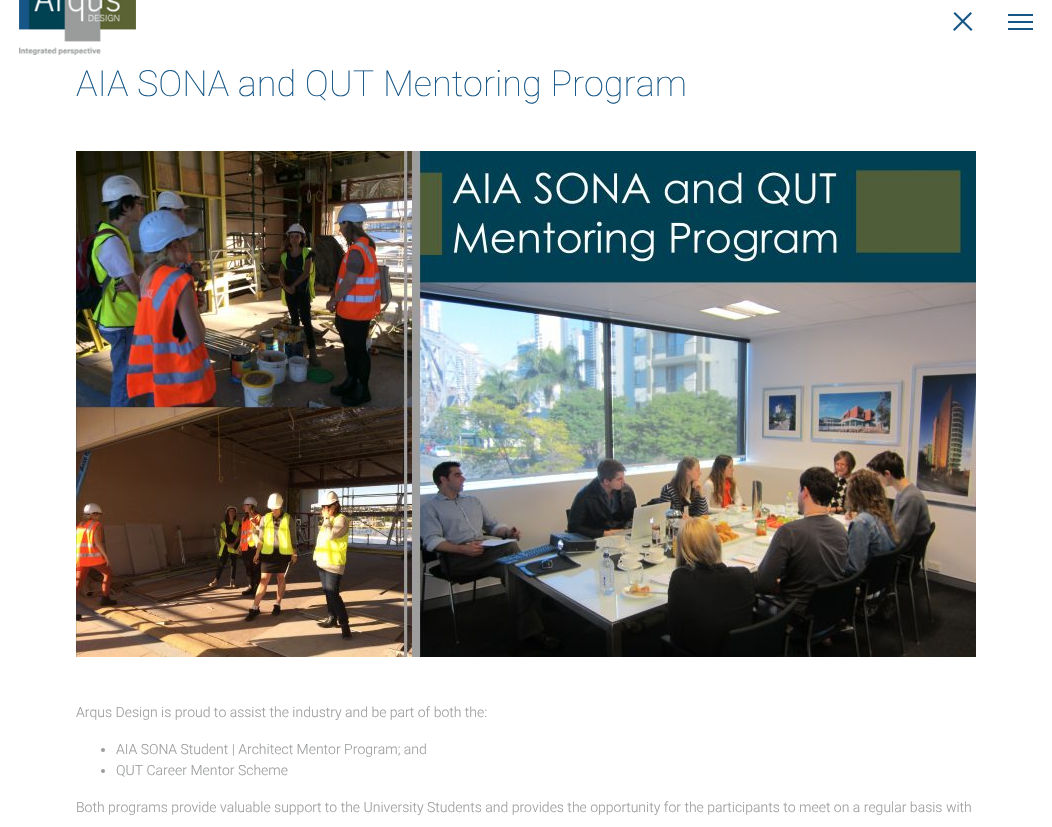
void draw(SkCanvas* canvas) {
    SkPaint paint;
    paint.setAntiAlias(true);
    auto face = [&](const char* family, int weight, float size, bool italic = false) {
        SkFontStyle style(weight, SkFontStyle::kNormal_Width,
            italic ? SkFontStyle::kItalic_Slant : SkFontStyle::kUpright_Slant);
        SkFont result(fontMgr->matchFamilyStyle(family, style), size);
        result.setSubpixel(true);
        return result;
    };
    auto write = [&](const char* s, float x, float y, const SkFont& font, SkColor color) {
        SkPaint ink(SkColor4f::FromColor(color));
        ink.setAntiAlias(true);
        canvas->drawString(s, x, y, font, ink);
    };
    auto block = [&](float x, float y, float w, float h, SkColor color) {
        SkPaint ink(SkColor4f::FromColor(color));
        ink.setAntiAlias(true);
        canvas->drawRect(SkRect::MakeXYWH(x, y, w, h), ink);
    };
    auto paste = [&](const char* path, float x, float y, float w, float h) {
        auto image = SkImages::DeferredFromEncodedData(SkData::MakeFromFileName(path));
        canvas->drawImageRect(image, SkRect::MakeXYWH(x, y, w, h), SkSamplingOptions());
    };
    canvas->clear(SK_ColorWHITE);
    paste("pic1.png", 19, 0, 117, 55);
    paint.setColor(SkColorSetRGB(21, 86, 135));
    canvas->drawPath(SkPathBuilder().moveTo(955, 12).lineTo(972.5f, 29.5f).lineTo(971, 31).lineTo(953.5f, 13.5f).close().detach(), paint);
    canvas->drawPath(SkPathBuilder().moveTo(953, 29.5f).lineTo(970.5f, 12).lineTo(972, 13.5f).lineTo(954.5f, 31).close().detach(), paint);
    block(1008, 14, 25, 2, SkColorSetRGB(21, 86, 135));
    block(1008, 21, 25, 2, SkColorSetRGB(21, 86, 135));
    block(1008, 28, 25, 2, SkColorSetRGB(21, 86, 135));
    auto kFont1 = face("Roboto", 100, 36);
    write("AIA SONA and QUT Mentoring Program", 76, 96, kFont1, SkColorSetRGB(21, 86, 135));
    paste("pic2.png", 76, 151, 900, 506);
    auto kFont2 = face("Roboto", 300, 14);
    write("Arqus Design is proud to assist the industry and be part of both the:", 76, 717, kFont2, SkColorSetRGB(154, 156, 156));
    paint.setColor(SkColorSetRGB(154, 156, 156));
    canvas->drawCircle(103, 750, 2, paint);
    write("AIA SONA Student | Architect Mentor Program; and", 116, 754, kFont2, SkColorSetRGB(154, 156, 156));
    canvas->drawCircle(103, 771, 2, paint);
    write("QUT Career Mentor Scheme", 116, 775, kFont2, SkColorSetRGB(154, 156, 156));
    write("Both programs provide valuable support to the University Students and provides the opportunity for the participants to meet on a regular basis with", 76, 812, kFont2, SkColorSetRGB(154, 156, 156));
}
